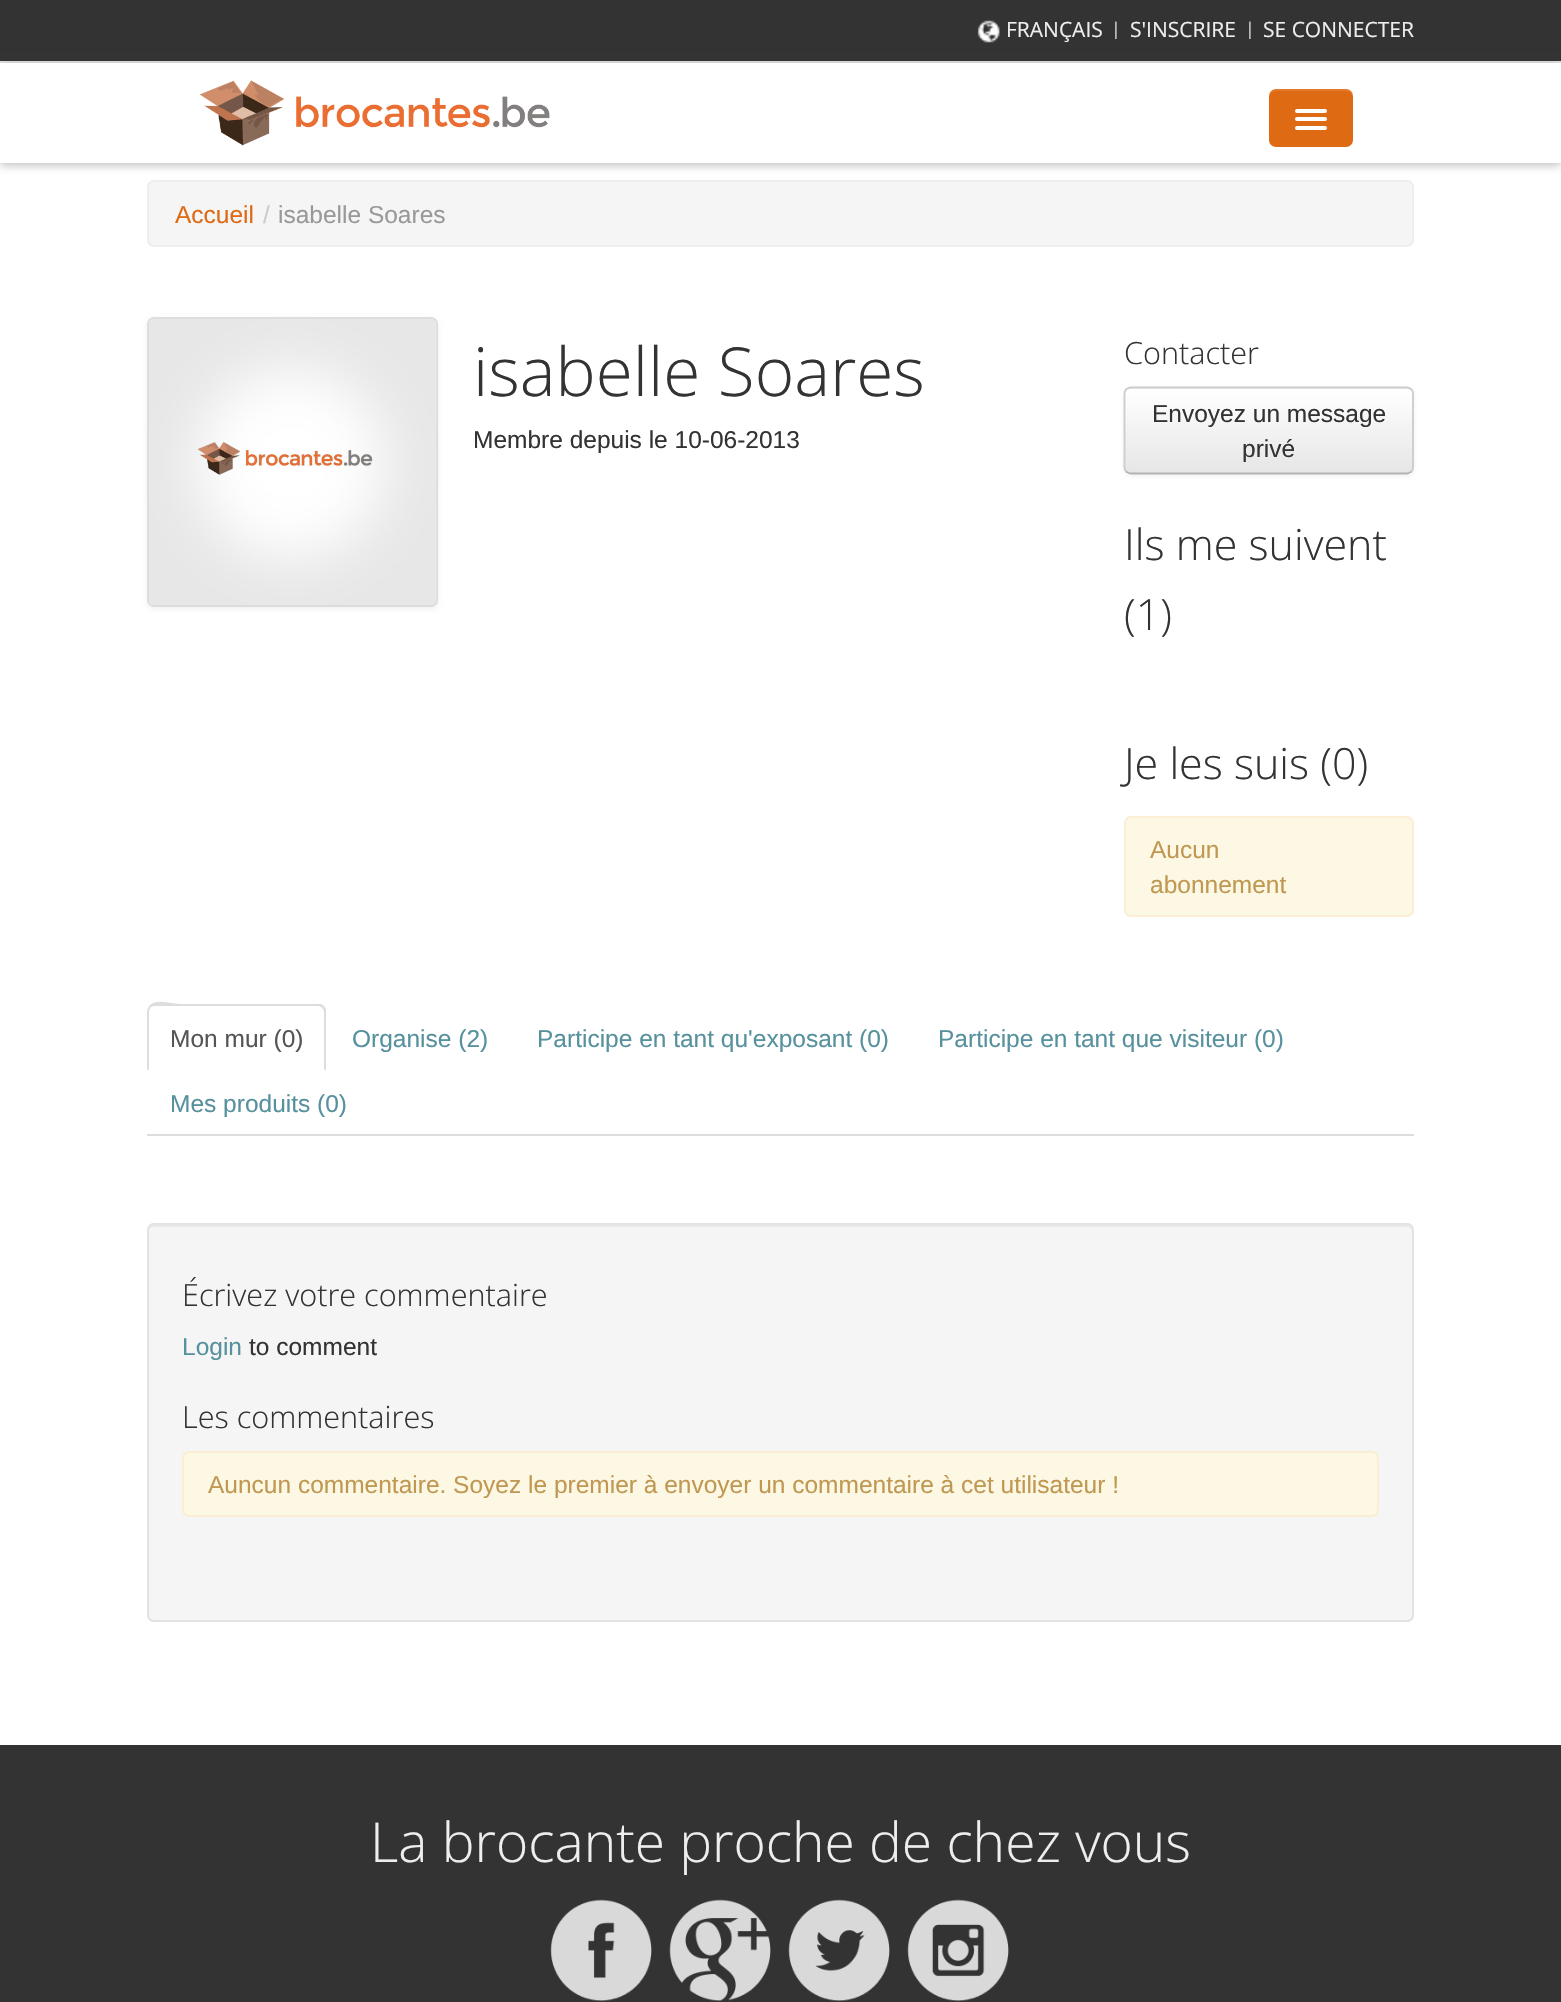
void draw(SkCanvas* canvas) {
    SkPaint paint;
    paint.setAntiAlias(true);
    auto face = [&](const char* family, int weight, float size, bool italic = false) {
        SkFontStyle style(weight, SkFontStyle::kNormal_Width,
            italic ? SkFontStyle::kItalic_Slant : SkFontStyle::kUpright_Slant);
        SkFont result(fontMgr->matchFamilyStyle(family, style), size);
        result.setSubpixel(true);
        return result;
    };
    auto write = [&](const char* s, float x, float y, const SkFont& font, SkColor color) {
        SkPaint ink(SkColor4f::FromColor(color));
        ink.setAntiAlias(true);
        canvas->drawString(s, x, y, font, ink);
    };
    auto block = [&](float x, float y, float w, float h, SkColor color) {
        SkPaint ink(SkColor4f::FromColor(color));
        ink.setAntiAlias(true);
        canvas->drawRect(SkRect::MakeXYWH(x, y, w, h), ink);
    };
    auto card = [&](float x, float y, float w, float h, float radius, SkColor color) {
        SkPaint ink(SkColor4f::FromColor(color));
        ink.setAntiAlias(true);
        canvas->drawRoundRect(SkRect::MakeXYWH(x, y, w, h), radius, radius, ink);
    };
    auto paste = [&](const char* path, float x, float y, float w, float h) {
        auto image = SkImages::DeferredFromEncodedData(SkData::MakeFromFileName(path));
        canvas->drawImageRect(image, SkRect::MakeXYWH(x, y, w, h), SkSamplingOptions());
    };
    canvas->clear(SK_ColorWHITE);
    block(0, 0, 1561, 61, SkColorSetRGB(51, 51, 51));
    block(0, 61, 1561, 2, SkColorSetRGB(229, 229, 229));
    paste("pic1.png", 977, 20, 23, 23);
    auto kFont1 = face("Open Sans", 400, 21);
    write("FRANÇAIS", 1006, 37, kFont1, SkColorSetRGB(238, 238, 238));
    auto kFont2 = face("Liberation Serif", 400, 19);
    write("|", 1114, 35, kFont2, SkColorSetRGB(238, 238, 238));
    write("S'INSCRIRE", 1130, 37, kFont1, SkColorSetRGB(238, 238, 238));
    write("|", 1248, 35, kFont2, SkColorSetRGB(238, 238, 238));
    write("SE CONNECTER", 1263, 37, kFont1, SkColorSetRGB(238, 238, 238));
    paint.setColor(SkColorSetARGB(84, 50, 50, 50));
    paint.setMaskFilter(SkMaskFilter::MakeBlur(kNormal_SkBlurStyle, 4.5f));
    canvas->drawRect(SkRect::MakeXYWH(0, 65, 1561, 100), paint);
    paint.setMaskFilter(nullptr);
    block(0, 63, 1561, 100, SK_ColorWHITE);
    paste("pic2.png", 199, 80, 351, 66);
    card(1269, 89, 84, 58, 7, SkColorSetRGB(223, 106, 20));
    paint.setColor(SkColorSetARGB(26, 255, 255, 255));
    canvas->drawPath(SkPathBuilder().moveTo(1276, 91).lineTo(1346, 91).cubicTo(1350, 91, 1353, 94, 1353, 98).cubicTo(1353, 86, 1344, 89, 1334, 89).lineTo(1288, 89).cubicTo(1278, 89, 1269, 86, 1269, 98).cubicTo(1269, 94, 1272, 91, 1276, 91).close().detach(), paint);
    card(1295, 109, 32, 4, 2, SK_ColorWHITE);
    card(1295, 117, 32, 4, 2, SK_ColorWHITE);
    card(1295, 126, 32, 4, 2, SK_ColorWHITE);
    paint.setColor(SkColorSetRGB(245, 245, 245));
    canvas->drawRoundRect(SkRect::MakeXYWH(148, 181, 1265, 65), 6, 6, paint);
    paint.setStyle(SkPaint::kStroke_Style);
    paint.setStrokeWidth(2);
    paint.setColor(SkColorSetRGB(238, 238, 238));
    canvas->drawRoundRect(SkRect::MakeXYWH(148, 181, 1265, 65), 6, 6, paint);
    auto kFont3 = face("Liberation Sans", 400, 24.5f);
    write("Accueil", 175, 223, kFont3, SkColorSetRGB(223, 106, 20));
    write("/", 263, 223, kFont3, SkColorSetRGB(204, 204, 204));
    write("isabelle Soares", 278, 223, kFont3, SkColorSetRGB(153, 153, 153));
    paint.setStyle(SkPaint::kFill_Style);
    paint.setColor(SkColorSetARGB(15, 0, 0, 0));
    paint.setMaskFilter(SkMaskFilter::MakeBlur(kNormal_SkBlurStyle, 2.5f));
    canvas->drawRoundRect(SkRect::MakeXYWH(147, 319, 291, 290), 7, 7, paint);
    paint.setMaskFilter(nullptr);
    paint.setStyle(SkPaint::kStroke_Style);
    paint.setColor(SkColorSetRGB(221, 221, 221));
    canvas->drawRoundRect(SkRect::MakeXYWH(148, 318, 289, 288), 6, 6, paint);
    paste("pic3.png", 149, 319, 287, 286);
    auto kFont4 = face("Open Sans", 300, 67.5f);
    write("isabelle Soares", 473, 396, kFont4, SkColorSetRGB(51, 51, 51));
    write("Membre depuis le 10-06-2013", 473, 448, kFont3, SkColorSetRGB(51, 51, 51));
    auto kFont5 = face("Open Sans", 300, 30.6f);
    write("Contacter", 1124, 364, kFont5, SkColorSetRGB(51, 51, 51));
    paint.setStyle(SkPaint::kFill_Style);
    paint.setColor(SkColorSetARGB(13, 0, 0, 0));
    paint.setMaskFilter(SkMaskFilter::MakeBlur(kNormal_SkBlurStyle, 2));
    canvas->drawRoundRect(SkRect::MakeXYWH(1124, 389, 290, 87), 7, 7, paint);
    paint.setMaskFilter(nullptr);
    card(1124, 387, 290, 87, 7, SkColorSetRGB(245, 245, 245));
    canvas->save();
    canvas->clipPath(SkPathBuilder().moveTo(1131, 387).lineTo(1407, 387).cubicTo(1411, 387, 1414, 390, 1414, 394).lineTo(1414, 467).cubicTo(1414, 471, 1411, 474, 1407, 474).lineTo(1131, 474).cubicTo(1127, 474, 1124, 471, 1124, 467).lineTo(1124, 394).cubicTo(1124, 390, 1127, 387, 1131, 387).close().detach(), true);
    {
        const SkColor colors[] = {SK_ColorWHITE, SkColorSetRGB(230, 230, 230)};
        const float stops[] = {0, 1};
        const SkPoint ends[] = {{1269, 389}, {1269, 473}};
        paint.setShader(SkGradientShader::MakeLinear(ends, colors, stops, 2, SkTileMode::kClamp));
        paint.setAlpha(255);
    }
    canvas->drawRect(SkRect::MakeXYWH(1124, 389, 290, 84), paint);
    canvas->restore();
    paint.setStyle(SkPaint::kStroke_Style);
    paint.setStrokeWidth(1.8f);
    paint.setShader(nullptr);
    paint.setColor(SkColorSetRGB(179, 179, 179));
    canvas->drawPath(SkPathBuilder().moveTo(1411.5f, 471.5f).cubicTo(1410, 472.5f, 1408.5f, 473.5f, 1407, 473.5f).lineTo(1130.5f, 473.5f).cubicTo(1129, 473.5f, 1127.5f, 472.5f, 1126, 471.5f).detach(), paint);
    paint.setColor(SkColorSetRGB(204, 204, 204));
    canvas->drawPath(SkPathBuilder().moveTo(1126, 471.5f).cubicTo(1125, 470.5f, 1124.5f, 469, 1124.5f, 467).lineTo(1124.5f, 394).cubicTo(1124.5f, 392, 1125, 390.5f, 1126, 389.5f).cubicTo(1127.5f, 388.5f, 1129, 387.5f, 1130.5f, 387.5f).lineTo(1407, 387.5f).cubicTo(1408.5f, 387.5f, 1410, 388.5f, 1411.5f, 389.5f).cubicTo(1412.5f, 390.5f, 1413, 392, 1413, 394).lineTo(1413, 467).cubicTo(1413, 469, 1412.5f, 470.5f, 1411.5f, 471.5f).detach(), paint);
    write("Envoyez un message", 1152, 422, kFont3, SkColorSetRGB(51, 51, 51));
    write("privé", 1242, 457, kFont3, SkColorSetRGB(51, 51, 51));
    auto kFont6 = face("Open Sans", 300, 43);
    write("Ils me suivent", 1124, 560, kFont6, SkColorSetRGB(51, 51, 51));
    write("(1)", 1124, 630, kFont6, SkColorSetRGB(51, 51, 51));
    write("Je les suis (0)", 1124, 779, kFont6, SkColorSetRGB(51, 51, 51));
    paint.setStyle(SkPaint::kFill_Style);
    paint.setColor(SkColorSetRGB(252, 248, 227));
    canvas->drawRoundRect(SkRect::MakeXYWH(1125, 817, 288, 99), 6, 6, paint);
    paint.setStyle(SkPaint::kStroke_Style);
    paint.setStrokeWidth(2);
    paint.setColor(SkColorSetRGB(251, 238, 213));
    canvas->drawRoundRect(SkRect::MakeXYWH(1125, 817, 288, 99), 6, 6, paint);
    write("Aucun", 1150, 858, kFont3, SkColorSetRGB(192, 152, 83));
    write("abonnement", 1150, 893, kFont3, SkColorSetRGB(192, 152, 83));
    block(147, 1134, 1267, 2, SkColorSetRGB(221, 221, 221));
    paint.setStyle(SkPaint::kFill_Style);
    paint.setColor(SkColorSetRGB(221, 221, 221));
    canvas->drawPath(SkPathBuilder().moveTo(154, 1006).cubicTo(152, 1006, 151, 1007, 150, 1008).lineTo(149, 1006).cubicTo(156, 998, 169, 1004, 180, 1004).lineTo(321, 1004).lineTo(324, 1006).lineTo(322, 1008).cubicTo(321, 1007, 320, 1006, 318, 1006).close().detach(), paint);
    canvas->drawPath(SkPathBuilder().moveTo(326, 1009).lineTo(326, 1071).lineTo(324, 1069).lineTo(324, 1012).cubicTo(324, 1010, 323, 1009, 322, 1008).lineTo(324, 1006).close().detach(), paint);
    canvas->drawPath(SkPathBuilder().moveTo(147, 1071).lineTo(149, 1069).lineTo(149, 1012).cubicTo(149, 1010, 150, 1009, 150, 1008).lineTo(149, 1006).cubicTo(148, 1008, 147, 1010, 147, 1012).close().detach(), paint);
    write("Mon mur (0)", 170, 1047, kFont3, SkColorSetRGB(85, 85, 85));
    write("Organise (2)", 352, 1047, kFont3, SkColorSetRGB(87, 145, 158));
    write("Participe en tant qu'exposant (0)", 537, 1047, kFont3, SkColorSetRGB(87, 145, 158));
    write("Participe en tant que visiteur (0)", 938, 1047, kFont3, SkColorSetRGB(87, 145, 158));
    write("Mes produits (0)", 170, 1112, kFont3, SkColorSetRGB(87, 145, 158));
    card(147, 1223, 1267, 399, 7, SkColorSetRGB(245, 245, 245));
    paint.setColor(SkColorSetRGB(233, 233, 233));
    canvas->drawPath(SkPathBuilder().moveTo(154, 1227).lineTo(1407, 1227).cubicTo(1410, 1227, 1412, 1229, 1412, 1232).lineTo(1412, 1230).cubicTo(1412, 1227, 1410, 1225, 1407, 1225).lineTo(154, 1225).cubicTo(151, 1225, 149, 1227, 149, 1230).lineTo(149, 1232).cubicTo(149, 1229, 151, 1227, 154, 1227).close().detach(), paint);
    paint.setStyle(SkPaint::kStroke_Style);
    paint.setColor(SkColorSetRGB(227, 227, 227));
    canvas->drawRoundRect(SkRect::MakeXYWH(148, 1224, 1265, 397), 6, 6, paint);
    write("Écrivez votre commentaire", 182, 1306, kFont5, SkColorSetRGB(51, 51, 51));
    write("Login", 182, 1355, kFont3, SkColorSetRGB(87, 145, 158));
    write("to comment", 249, 1355, kFont3, SkColorSetRGB(51, 51, 51));
    write("Les commentaires", 182, 1428, kFont5, SkColorSetRGB(51, 51, 51));
    paint.setStyle(SkPaint::kFill_Style);
    paint.setColor(SkColorSetRGB(252, 248, 227));
    canvas->drawRoundRect(SkRect::MakeXYWH(183, 1452, 1195, 64), 6, 6, paint);
    paint.setStyle(SkPaint::kStroke_Style);
    paint.setColor(SkColorSetRGB(251, 238, 213));
    canvas->drawRoundRect(SkRect::MakeXYWH(183, 1452, 1195, 64), 6, 6, paint);
    write("Auncun commentaire. Soyez le premier à envoyer un commentaire à cet utilisateur !", 208, 1493, kFont3, SkColorSetRGB(192, 152, 83));
    block(0, 1745, 1561, 257, SkColorSetRGB(51, 51, 51));
    auto kFont7 = face("Open Sans", 300, 55.1f);
    write("La brocante proche de chez vous", 370, 1862, kFont7, SkColorSetRGB(238, 238, 238));
    paste("pic4.png", 550, 1899, 102, 103);
    paste("pic5.png", 669, 1899, 102, 103);
    paste("pic6.png", 788, 1899, 102, 103);
    paste("pic7.png", 907, 1899, 102, 103);
}
